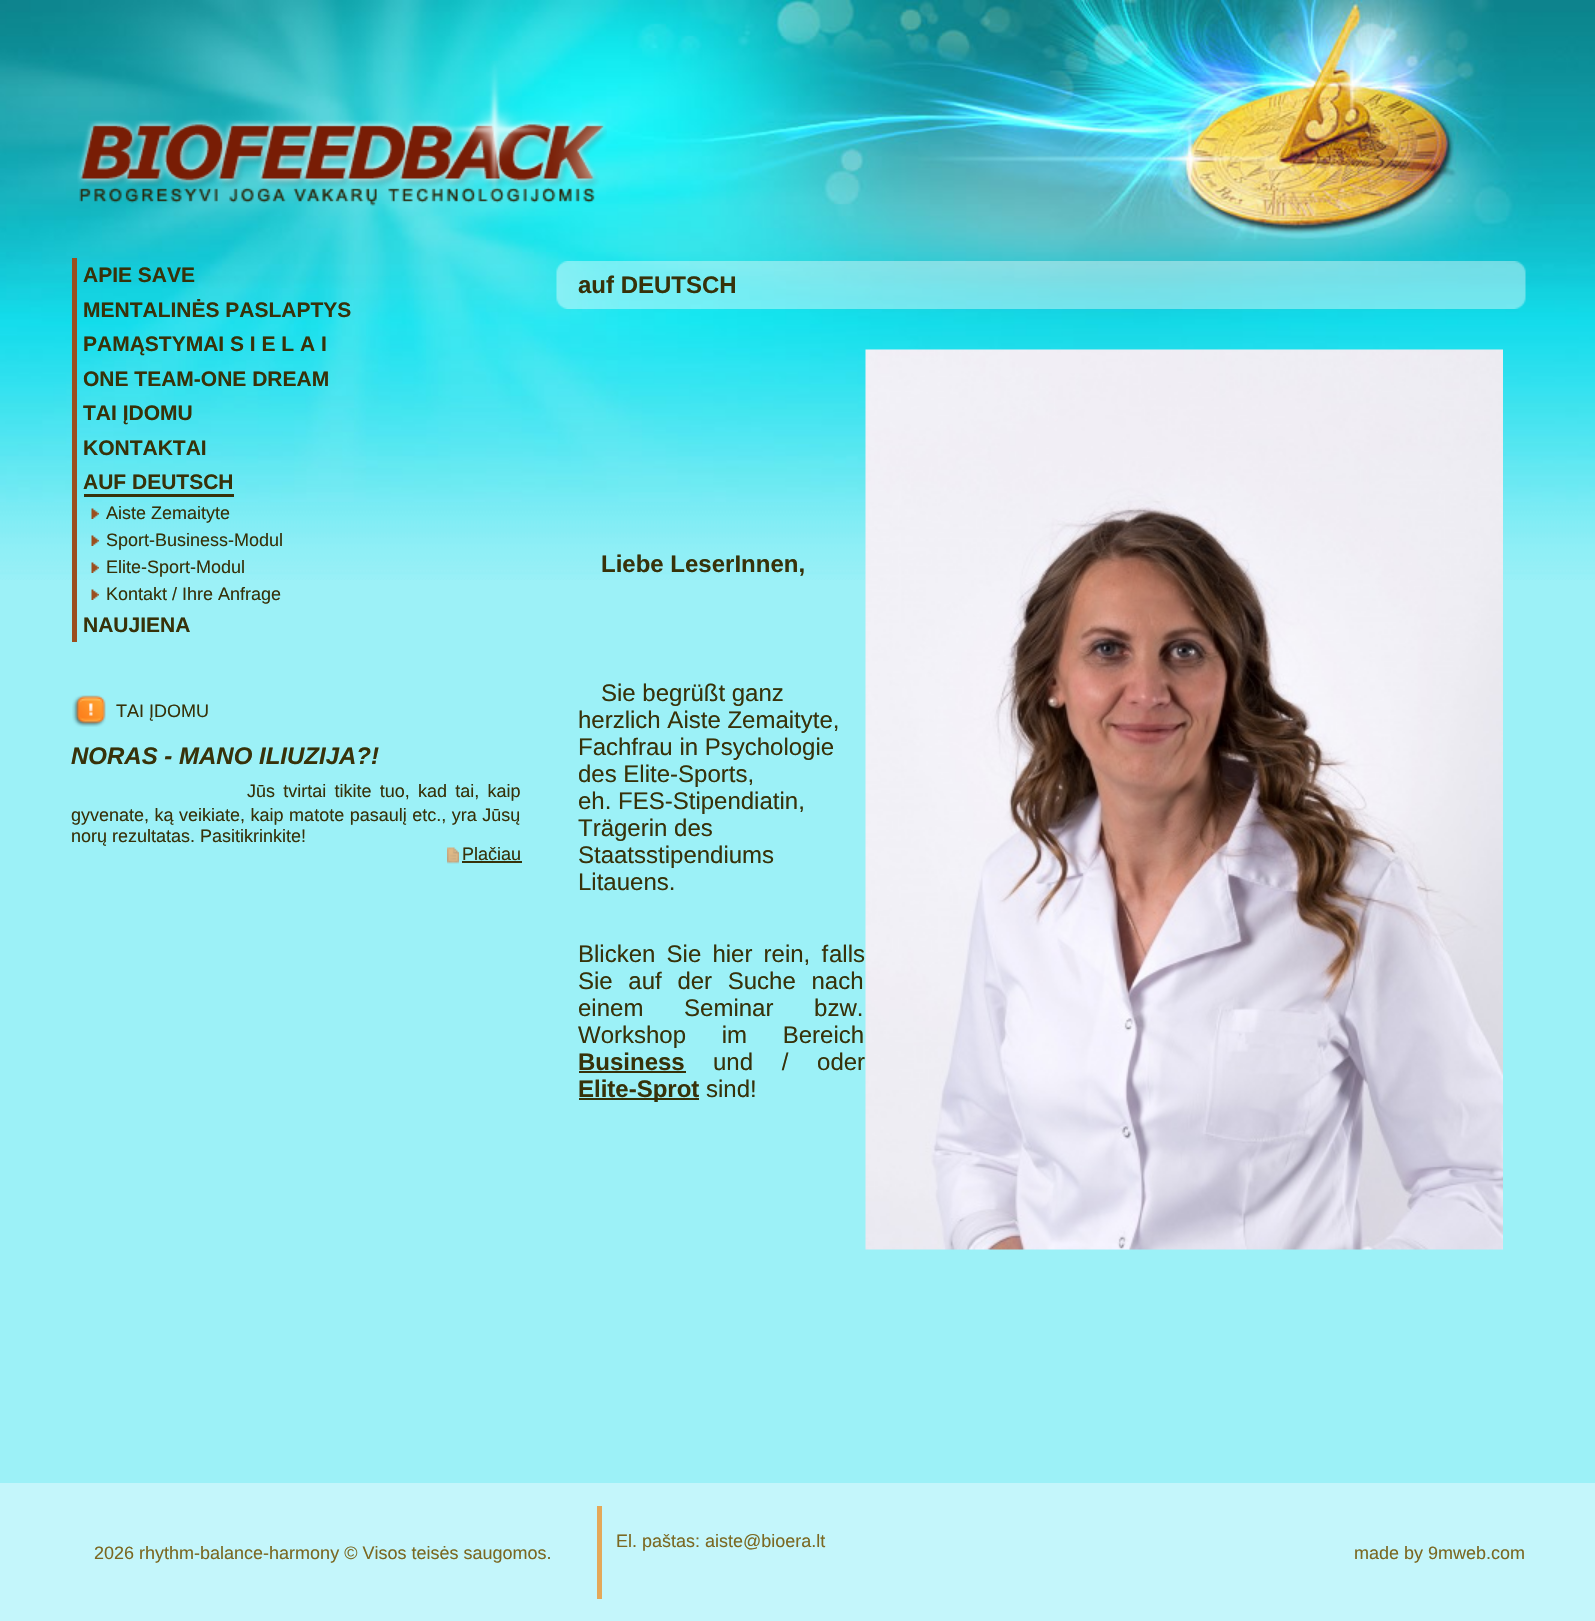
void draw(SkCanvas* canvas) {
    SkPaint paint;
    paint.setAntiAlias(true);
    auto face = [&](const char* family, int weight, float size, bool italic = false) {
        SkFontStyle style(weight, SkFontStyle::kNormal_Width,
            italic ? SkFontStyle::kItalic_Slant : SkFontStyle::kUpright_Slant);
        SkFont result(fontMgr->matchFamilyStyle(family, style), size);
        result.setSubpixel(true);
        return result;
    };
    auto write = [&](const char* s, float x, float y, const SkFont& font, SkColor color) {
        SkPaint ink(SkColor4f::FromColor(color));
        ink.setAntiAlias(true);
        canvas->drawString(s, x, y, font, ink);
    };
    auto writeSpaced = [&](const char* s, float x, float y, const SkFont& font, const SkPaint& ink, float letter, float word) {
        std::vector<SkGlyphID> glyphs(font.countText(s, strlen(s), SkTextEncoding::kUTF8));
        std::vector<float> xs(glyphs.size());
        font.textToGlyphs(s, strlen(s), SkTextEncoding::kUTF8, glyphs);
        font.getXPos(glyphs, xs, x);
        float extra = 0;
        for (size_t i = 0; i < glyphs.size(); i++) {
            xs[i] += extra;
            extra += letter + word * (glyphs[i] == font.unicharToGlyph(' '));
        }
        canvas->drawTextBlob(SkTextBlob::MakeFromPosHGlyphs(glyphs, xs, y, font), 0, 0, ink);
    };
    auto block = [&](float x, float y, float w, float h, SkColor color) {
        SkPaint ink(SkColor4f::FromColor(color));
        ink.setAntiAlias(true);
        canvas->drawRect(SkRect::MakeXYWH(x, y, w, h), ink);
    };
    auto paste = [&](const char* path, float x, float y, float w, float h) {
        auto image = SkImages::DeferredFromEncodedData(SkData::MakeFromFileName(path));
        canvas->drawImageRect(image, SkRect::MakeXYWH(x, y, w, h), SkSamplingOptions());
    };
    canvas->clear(SkColorSetRGB(156, 241, 247));
    paste("pic1.png", 0, 502, 1595, 78);
    paste("pic2.png", 0, 0, 1595, 502);
    paste("pic3.png", 77, 61, 530, 147);
    block(72, 258, 5, 384, SkColorSetRGB(155, 78, 30));
    auto kFont1 = face("Liberation Sans", 700, 21);
    write("APIE SAVE", 83, 282, kFont1, SkColorSetRGB(55, 50, 10));
    write("MENTALINĖS PASLAPTYS", 83, 317, kFont1, SkColorSetRGB(55, 50, 10));
    write("PAMĄSTYMAI S I E L A I", 83, 351, kFont1, SkColorSetRGB(55, 50, 10));
    write("ONE TEAM-ONE DREAM", 83, 386, kFont1, SkColorSetRGB(55, 50, 10));
    write("TAI ĮDOMU", 83, 420, kFont1, SkColorSetRGB(55, 50, 10));
    write("KONTAKTAI", 83, 455, kFont1, SkColorSetRGB(55, 50, 10));
    block(84, 494, 150, 3, SkColorSetRGB(55, 50, 10));
    write("AUF DEUTSCH", 83, 489, kFont1, SkColorSetRGB(55, 50, 10));
    paste("pic4.png", 91, 508, 8, 11);
    auto kFont2 = face("Liberation Sans", 400, 18);
    write("Aiste Zemaityte", 106, 519, kFont2, SkColorSetRGB(55, 50, 10));
    paste("pic5.png", 91, 535, 8, 11);
    write("Sport-Business-Modul", 106, 546, kFont2, SkColorSetRGB(55, 50, 10));
    paste("pic6.png", 91, 562, 8, 11);
    write("Elite-Sport-Modul", 106, 573, kFont2, SkColorSetRGB(55, 50, 10));
    paste("pic7.png", 91, 589, 8, 11);
    write("Kontakt / Ihre Anfrage", 106, 600, kFont2, SkColorSetRGB(55, 50, 10));
    write("NAUJIENA", 83, 632, kFont1, SkColorSetRGB(55, 50, 10));
    paste("pic8.png", 72, 695, 34, 32);
    write("TAI ĮDOMU", 116, 717, kFont2, SkColorSetRGB(55, 50, 10));
    auto kFont3 = face("Liberation Sans", 700, 24, true);
    write("NORAS - MANO ILIUZIJA?!", 71, 764, kFont3, SkColorSetRGB(55, 50, 10));
    paint.setColor(SkColorSetRGB(55, 50, 10));
    writeSpaced("Jūs tvirtai tikite tuo, kad tai, kaip", 247, 797, kFont2, paint, 0, 3.25f);
    writeSpaced("gyvenate, ką veikiate, kaip matote pasaulį etc., yra Jūsų", 71, 821, kFont2, paint, 0, 0.5f);
    write("norų rezultatas. Pasitikrinkite!", 71, 842, kFont2, SkColorSetRGB(55, 50, 10));
    paste("pic9.png", 447, 847, 12, 17);
    write("Plačiau", 462, 860, kFont2, SkColorSetRGB(55, 50, 10));
    block(462, 861, 60, 2, SkColorSetRGB(55, 50, 10));
    paste("pic10.png", 556, 261, 970, 48);
    auto kFont4 = face("Liberation Sans", 700, 24);
    write("auf DEUTSCH", 578, 293, kFont4, SkColorSetRGB(55, 50, 10));
    write("Liebe LeserInnen,", 601, 572, kFont4, SkColorSetRGB(55, 50, 10));
    paste("pic11.png", 865, 349, 638, 901);
    auto kFont5 = face("Liberation Sans", 400, 24);
    write("Sie begrüßt ganz", 601, 701, kFont5, SkColorSetRGB(55, 50, 10));
    write("herzlich Aiste Zemaityte,", 578, 728, kFont5, SkColorSetRGB(55, 50, 10));
    write("Fachfrau in Psychologie", 578, 755, kFont5, SkColorSetRGB(55, 50, 10));
    write("des Elite-Sports,", 578, 782, kFont5, SkColorSetRGB(55, 50, 10));
    write("eh. FES-Stipendiatin,", 578, 809, kFont5, SkColorSetRGB(55, 50, 10));
    write("Trägerin des", 578, 836, kFont5, SkColorSetRGB(55, 50, 10));
    write("Staatsstipendiums", 578, 863, kFont5, SkColorSetRGB(55, 50, 10));
    write("Litauens.", 578, 890, kFont5, SkColorSetRGB(55, 50, 10));
    writeSpaced("Blicken Sie hier rein, f", 578, 962, kFont5, paint, 0, 4.5f);
    write("alls", 829, 962, kFont5, SkColorSetRGB(55, 50, 10));
    writeSpaced("Sie auf der Suche nach", 578, 989, kFont5, paint, 0, 9);
    writeSpaced("einem Seminar bzw.", 578, 1016, kFont5, paint, 0, 34);
    writeSpaced("Workshop im Bereich", 578, 1043, kFont5, paint, 0, 29);
    write("Business", 578, 1070, kFont4, SkColorSetRGB(55, 50, 10));
    block(579, 1071, 107, 2, SkColorSetRGB(55, 50, 10));
    writeSpaced("und / oder", 713, 1070, kFont5, paint, 0, 22);
    block(579, 1098, 120, 2, SkColorSetRGB(55, 50, 10));
    write("Elite-Sprot", 578, 1097, kFont4, SkColorSetRGB(55, 50, 10));
    write("sind!", 706, 1097, kFont5, SkColorSetRGB(55, 50, 10));
    block(0, 1483, 1595, 138, SkColorSetRGB(196, 246, 251));
    write("El. paštas: aiste@bioera.lt", 616, 1547, kFont2, SkColorSetRGB(123, 104, 34));
    block(597, 1506, 5, 93, SkColorSetRGB(228, 168, 89));
    write("2026 rhythm-balance-harmony © Visos teisės saugomos.", 94, 1559, kFont2, SkColorSetRGB(123, 104, 34));
    write("made by", 1354, 1559, kFont2, SkColorSetRGB(123, 104, 34));
    write("9mweb.com", 1428, 1559, kFont2, SkColorSetRGB(123, 104, 34));
}
